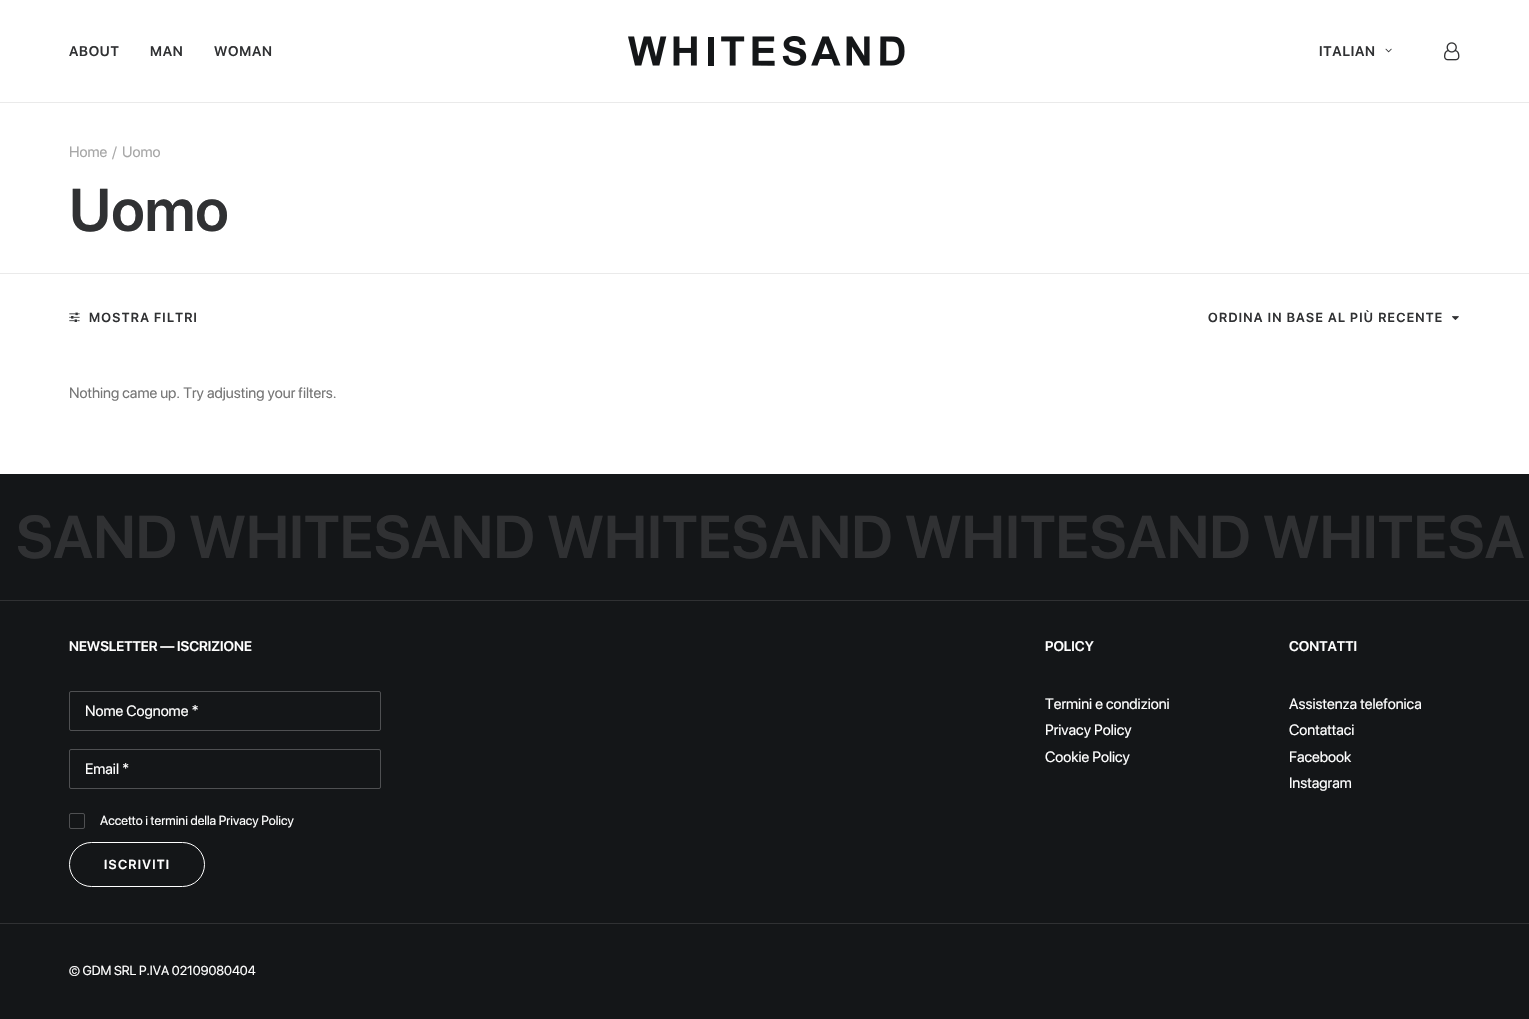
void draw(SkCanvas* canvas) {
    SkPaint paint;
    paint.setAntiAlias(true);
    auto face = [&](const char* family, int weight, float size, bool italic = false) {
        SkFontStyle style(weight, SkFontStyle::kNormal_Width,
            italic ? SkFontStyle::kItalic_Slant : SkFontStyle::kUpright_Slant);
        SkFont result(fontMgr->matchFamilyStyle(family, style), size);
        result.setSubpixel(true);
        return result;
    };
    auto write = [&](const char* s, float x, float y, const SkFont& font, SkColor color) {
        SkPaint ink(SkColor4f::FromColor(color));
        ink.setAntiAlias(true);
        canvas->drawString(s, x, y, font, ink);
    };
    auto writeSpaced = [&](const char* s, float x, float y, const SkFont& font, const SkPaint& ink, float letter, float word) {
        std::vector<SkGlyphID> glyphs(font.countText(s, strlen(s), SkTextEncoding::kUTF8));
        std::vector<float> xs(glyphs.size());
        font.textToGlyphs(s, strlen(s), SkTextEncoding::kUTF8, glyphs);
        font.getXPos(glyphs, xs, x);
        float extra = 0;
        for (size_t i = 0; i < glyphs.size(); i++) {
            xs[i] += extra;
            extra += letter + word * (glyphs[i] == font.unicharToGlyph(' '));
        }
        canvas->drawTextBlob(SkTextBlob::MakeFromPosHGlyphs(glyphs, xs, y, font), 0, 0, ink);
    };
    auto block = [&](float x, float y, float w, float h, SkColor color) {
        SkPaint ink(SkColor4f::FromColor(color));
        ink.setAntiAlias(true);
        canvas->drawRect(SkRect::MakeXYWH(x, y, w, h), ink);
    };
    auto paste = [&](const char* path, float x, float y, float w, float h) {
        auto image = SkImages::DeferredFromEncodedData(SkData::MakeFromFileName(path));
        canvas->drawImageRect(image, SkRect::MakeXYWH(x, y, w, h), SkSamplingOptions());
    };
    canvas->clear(SK_ColorWHITE);
    block(0, 102, 1529, 1, SkColorSetRGB(234, 234, 234));
    auto kFont1 = face("SF Pro Display", 600, 14);
    paint.setColor(SkColorSetRGB(48, 49, 51));
    writeSpaced("ABOUT", 69, 56, kFont1, paint, 0.75f, 0);
    writeSpaced("MAN", 150, 56, kFont1, paint, 0.75f, 0);
    writeSpaced("WOMAN", 214, 56, kFont1, paint, 0.75f, 0);
    paste("pic1.png", 628, 36, 277, 30);
    writeSpaced("ITALIAN", 1319, 56, kFont1, paint, 0.75f, 0);
    paste("pic2.png", 1385, 48, 7, 5);
    paste("pic3.png", 1444, 42, 16, 19);
    block(0, 273, 1529, 1, SkColorSetRGB(234, 234, 234));
    auto kFont2 = face("SF Pro Display", 400, 15);
    write("Home", 69, 157, kFont2, SkColorSetRGB(167, 167, 167));
    write("/", 112, 157, kFont2, SkColorSetRGB(167, 167, 167));
    write("Uomo", 122, 157, kFont2, SkColorSetRGB(167, 167, 167));
    auto kFont3 = face("SF Pro Display", 600, 60);
    write("Uomo", 69, 231, kFont3, SkColorSetRGB(48, 49, 51));
    paste("pic4.png", 69, 312, 11, 10);
    auto kFont4 = face("SF Pro Display", 600, 13);
    writeSpaced("MOSTRA FILTRI", 89, 322, kFont4, paint, 1.3f, 0);
    writeSpaced("ORDINA IN BASE AL PIÙ RECENTE", 1208, 322, kFont4, paint, 1.3f, 0);
    paste("pic5.png", 1452, 316, 7, 4);
    write("Nothing came up. Try adjusting your filters.", 69, 398, kFont2, SkColorSetRGB(119, 119, 119));
    block(0, 474, 1529, 126, SkColorSetRGB(20, 22, 24));
    block(0, 600, 1529, 1, SkColorSetRGB(48, 49, 51));
    write("SAND", 16, 558, kFont3, SkColorSetRGB(48, 49, 51));
    write("WHITESAND WHITESAND WHITESAND WHITESA", 189, 558, kFont3, SkColorSetRGB(48, 49, 51));
    block(0, 601, 1529, 322, SkColorSetRGB(20, 22, 24));
    write("NEWSLETTER — ISCRIZIONE", 69, 651, kFont1, SK_ColorWHITE);
    paint.setStyle(SkPaint::kStroke_Style);
    paint.setStrokeWidth(1);
    paint.setColor(SkColorSetRGB(79, 80, 82));
    canvas->drawRoundRect(SkRect::MakeXYWH(69.5f, 691.5f, 311, 39), 1.5f, 1.5f, paint);
    write("Nome Cognome *", 85, 716, kFont2, SK_ColorWHITE);
    canvas->drawRoundRect(SkRect::MakeXYWH(69.5f, 749.5f, 311, 39), 1.5f, 1.5f, paint);
    write("Email *", 85, 774, kFont2, SK_ColorWHITE);
    canvas->drawRoundRect(SkRect::MakeXYWH(69.5f, 813.5f, 15, 15), 1.5f, 1.5f, paint);
    auto kFont5 = face("SF Pro Display", 400, 13);
    write("Accetto i termini della Privacy Policy", 100, 825, kFont5, SK_ColorWHITE);
    paint.setColor(SK_ColorWHITE);
    canvas->drawRoundRect(SkRect::MakeXYWH(69.5f, 842.5f, 135, 44), 22, 22, paint);
    paint.setStyle(SkPaint::kFill_Style);
    writeSpaced("ISCRIVITI", 104, 869, kFont4, paint, 1.3f, 0);
    write("POLICY", 1045, 651, kFont1, SK_ColorWHITE);
    write("Termini e condizioni", 1045, 709, kFont2, SK_ColorWHITE);
    write("Privacy Policy", 1045, 735, kFont2, SK_ColorWHITE);
    write("Cookie Policy", 1045, 762, kFont2, SK_ColorWHITE);
    write("CONTATTI", 1289, 651, kFont1, SK_ColorWHITE);
    write("Assistenza telefonica", 1289, 709, kFont2, SK_ColorWHITE);
    write("Contattaci", 1289, 735, kFont2, SK_ColorWHITE);
    write("Facebook", 1289, 762, kFont2, SK_ColorWHITE);
    write("Instagram", 1289, 788, kFont2, SK_ColorWHITE);
    block(0, 924, 1529, 95, SkColorSetRGB(20, 22, 24));
    block(0, 923, 1529, 1, SkColorSetRGB(48, 49, 51));
    write("© GDM SRL P.IVA 02109080404", 69, 975, kFont5, SK_ColorWHITE);
}
